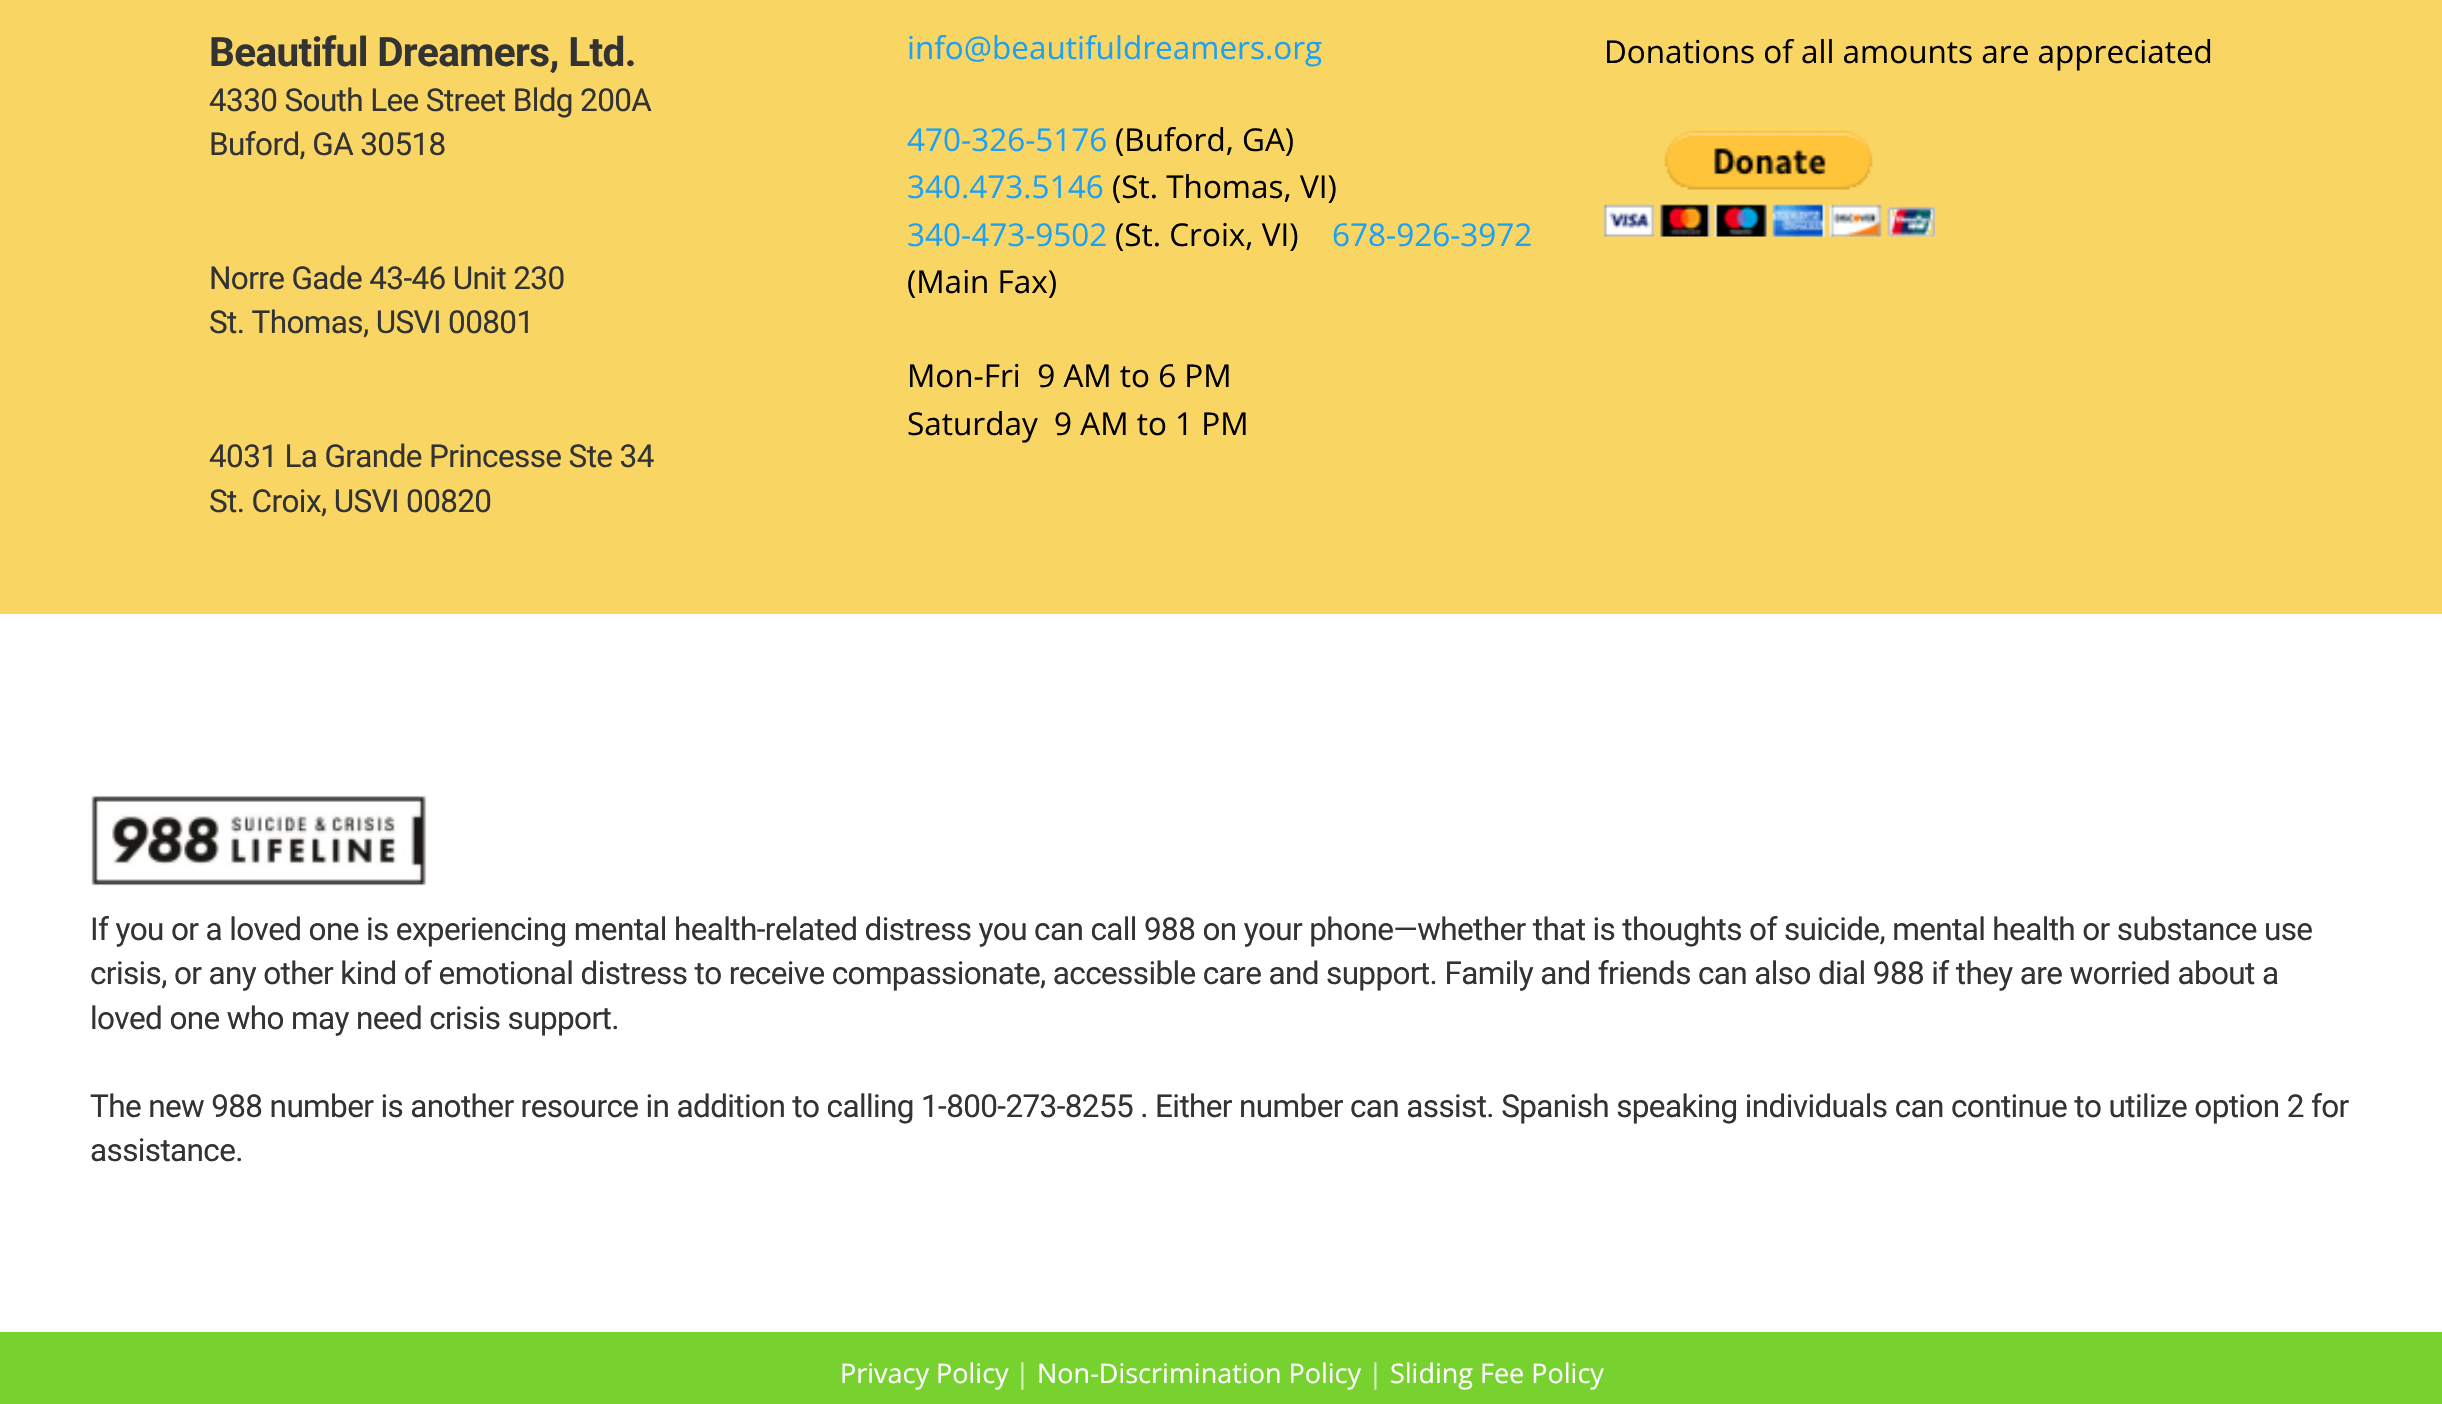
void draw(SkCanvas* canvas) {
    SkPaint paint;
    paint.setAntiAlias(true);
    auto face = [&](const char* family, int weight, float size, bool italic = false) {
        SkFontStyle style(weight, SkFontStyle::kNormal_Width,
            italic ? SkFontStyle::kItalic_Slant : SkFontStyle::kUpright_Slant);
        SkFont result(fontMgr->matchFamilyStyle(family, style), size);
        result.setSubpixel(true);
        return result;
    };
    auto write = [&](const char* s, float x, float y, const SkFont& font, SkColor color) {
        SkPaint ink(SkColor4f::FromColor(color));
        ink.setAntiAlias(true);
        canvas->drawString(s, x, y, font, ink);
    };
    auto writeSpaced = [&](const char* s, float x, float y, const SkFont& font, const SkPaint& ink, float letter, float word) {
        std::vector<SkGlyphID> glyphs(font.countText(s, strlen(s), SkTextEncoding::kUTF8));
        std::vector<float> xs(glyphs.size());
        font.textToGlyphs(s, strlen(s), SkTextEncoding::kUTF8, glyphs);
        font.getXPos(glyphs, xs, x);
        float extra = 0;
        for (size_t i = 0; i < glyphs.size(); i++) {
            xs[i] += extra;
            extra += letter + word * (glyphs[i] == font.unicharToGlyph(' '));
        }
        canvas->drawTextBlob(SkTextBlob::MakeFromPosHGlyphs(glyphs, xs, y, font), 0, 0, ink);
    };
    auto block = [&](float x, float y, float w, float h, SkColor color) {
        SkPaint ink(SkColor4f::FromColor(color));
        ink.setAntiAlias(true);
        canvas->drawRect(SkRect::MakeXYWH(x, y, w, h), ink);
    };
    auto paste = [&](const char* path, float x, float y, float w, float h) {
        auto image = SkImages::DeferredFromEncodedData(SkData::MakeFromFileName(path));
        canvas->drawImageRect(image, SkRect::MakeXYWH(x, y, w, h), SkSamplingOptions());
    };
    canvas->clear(SK_ColorWHITE);
    block(0, 0, 2442, 614, SkColorSetRGB(249, 213, 100));
    auto kFont1 = face("Roboto", 700, 40.5f);
    paint.setColor(SkColorSetRGB(51, 51, 51));
    writeSpaced("Beautiful Dreamers, Ltd.", 209, 66, kFont1, paint, -0.63f, 0);
    auto kFont2 = face("Roboto", 400, 31.5f);
    writeSpaced("4330 South Lee Street Bldg 200A", 209, 111, kFont2, paint, -0.63f, 0);
    writeSpaced("Buford, GA 30518", 209, 155, kFont2, paint, -0.63f, 0);
    writeSpaced("Norre Gade 43-46 Unit 230", 209, 289, kFont2, paint, -0.63f, 0);
    writeSpaced("St. Thomas, USVI 00801", 209, 333, kFont2, paint, -0.63f, 0);
    writeSpaced("4031 La Grande Princesse Ste 34", 209, 467, kFont2, paint, -0.63f, 0);
    writeSpaced("St. Croix, USVI 00820", 209, 512, kFont2, paint, -0.63f, 0);
    auto kFont3 = face("Open Sans", 400, 31.5f);
    write("info@beautifuldreamers.org", 907, 59, kFont3, SkColorSetRGB(29, 161, 242));
    write("470-326-5176", 907, 151, kFont3, SkColorSetRGB(29, 161, 242));
    write("(Buford, GA)", 1115, 151, kFont3, SK_ColorBLACK);
    write("340.473.5146", 907, 198, kFont3, SkColorSetRGB(29, 161, 242));
    write("(St. Thomas, VI)", 1112, 198, kFont3, SK_ColorBLACK);
    write("340-473-9502", 907, 246, kFont3, SkColorSetRGB(29, 161, 242));
    write("(St. Croix, VI)", 1115, 246, kFont3, SK_ColorBLACK);
    write("678-926-3972", 1332, 246, kFont3, SkColorSetRGB(29, 161, 242));
    write("(Main Fax)", 907, 293, kFont3, SK_ColorBLACK);
    write("Mon-Fri  9 AM to 6 PM", 907, 387, kFont3, SK_ColorBLACK);
    write("Saturday  9 AM to 1 PM", 907, 435, kFont3, SK_ColorBLACK);
    write("Donations of all amounts are appreciated", 1604, 63, kFont3, SK_ColorBLACK);
    paste("pic1.png", 1604, 130, 331, 107);
    paste("pic2.png", 91, 794, 336, 92);
    writeSpaced("If you or a loved one is experiencing mental health-related distress you can call 988 on your phone—whether that is thoughts of suicide, mental health or substance use", 90, 940, kFont2, paint, -0.63f, 0);
    writeSpaced("crisis, or any other kind of emotional distress to receive compassionate, accessible care and support. Family and friends can also dial 988 if they are worried about a", 90, 984, kFont2, paint, -0.63f, 0);
    writeSpaced("loved one who may need crisis support.", 90, 1029, kFont2, paint, -0.63f, 0);
    writeSpaced("The new 988 number is another resource in addition to calling 1-800-273-8255 . Either number can assist. Spanish speaking individuals can continue to utilize option 2 for", 90, 1117, kFont2, paint, -0.63f, 0);
    writeSpaced("assistance.", 90, 1161, kFont2, paint, -0.63f, 0);
    block(0, 1332, 2442, 72, SkColorSetRGB(119, 209, 46));
    auto kFont4 = face("Open Sans", 400, 27);
    write("Privacy Policy", 840, 1383, kFont4, SK_ColorWHITE);
    write("|", 1015, 1383, kFont4, SkColorSetRGB(214, 241, 192));
    write("Non-Discrimination Policy", 1037, 1383, kFont4, SK_ColorWHITE);
    write("|", 1368, 1383, kFont4, SkColorSetRGB(214, 241, 192));
    write("Sliding Fee Policy", 1390, 1383, kFont4, SK_ColorWHITE);
}
